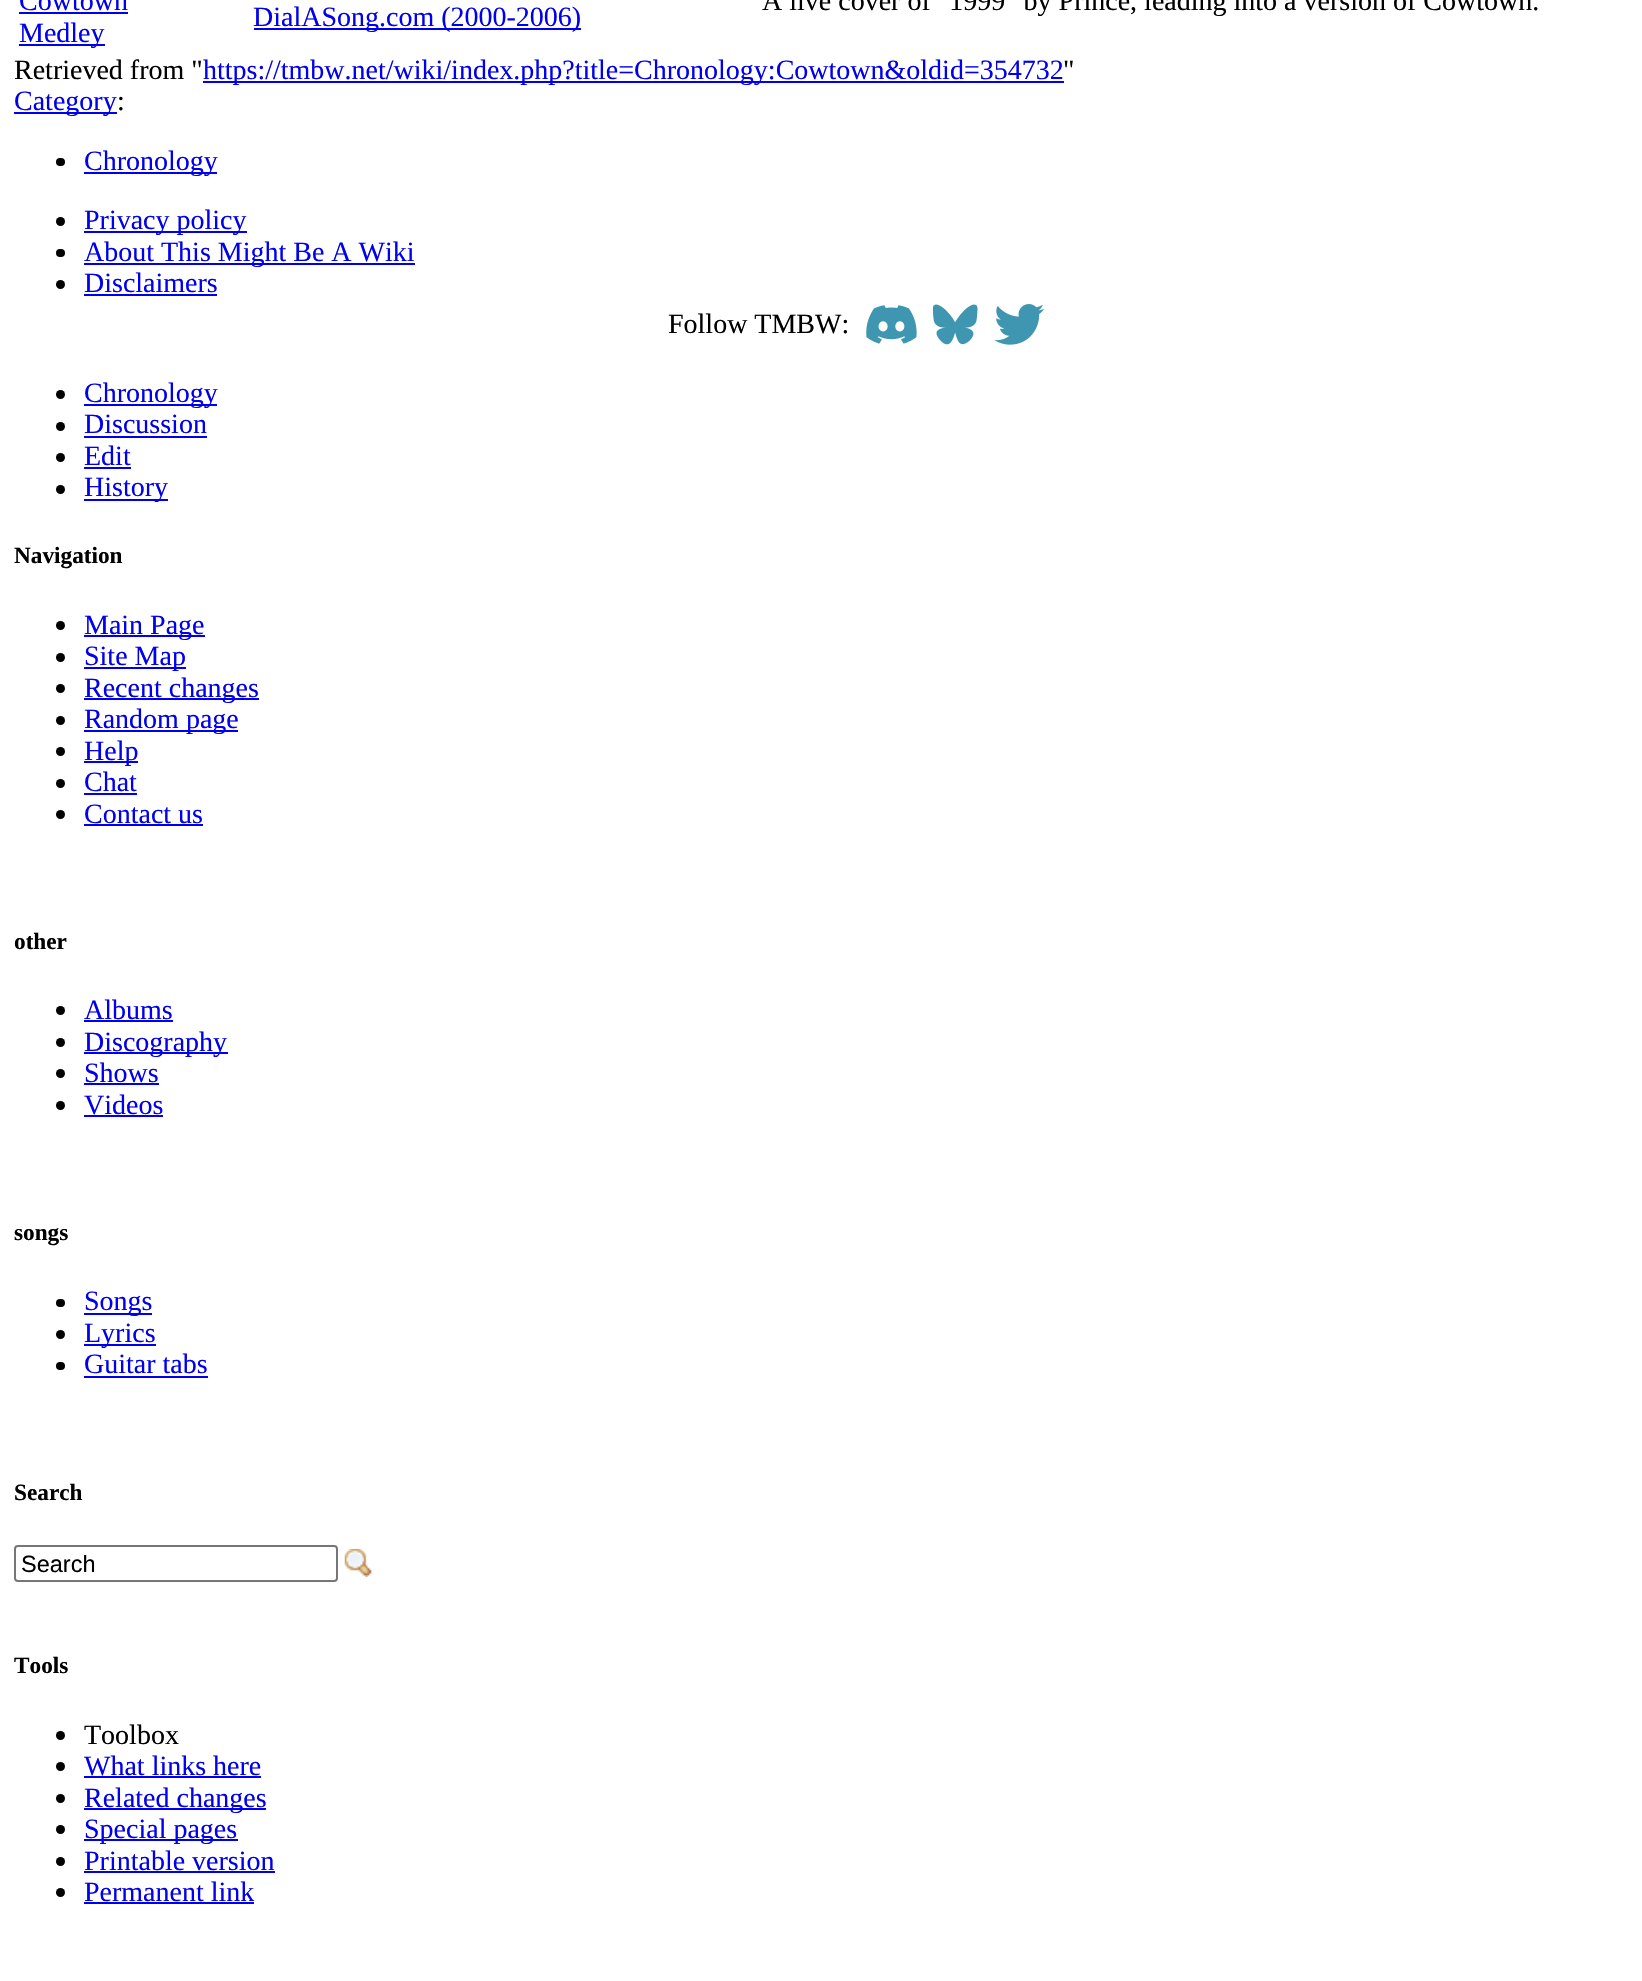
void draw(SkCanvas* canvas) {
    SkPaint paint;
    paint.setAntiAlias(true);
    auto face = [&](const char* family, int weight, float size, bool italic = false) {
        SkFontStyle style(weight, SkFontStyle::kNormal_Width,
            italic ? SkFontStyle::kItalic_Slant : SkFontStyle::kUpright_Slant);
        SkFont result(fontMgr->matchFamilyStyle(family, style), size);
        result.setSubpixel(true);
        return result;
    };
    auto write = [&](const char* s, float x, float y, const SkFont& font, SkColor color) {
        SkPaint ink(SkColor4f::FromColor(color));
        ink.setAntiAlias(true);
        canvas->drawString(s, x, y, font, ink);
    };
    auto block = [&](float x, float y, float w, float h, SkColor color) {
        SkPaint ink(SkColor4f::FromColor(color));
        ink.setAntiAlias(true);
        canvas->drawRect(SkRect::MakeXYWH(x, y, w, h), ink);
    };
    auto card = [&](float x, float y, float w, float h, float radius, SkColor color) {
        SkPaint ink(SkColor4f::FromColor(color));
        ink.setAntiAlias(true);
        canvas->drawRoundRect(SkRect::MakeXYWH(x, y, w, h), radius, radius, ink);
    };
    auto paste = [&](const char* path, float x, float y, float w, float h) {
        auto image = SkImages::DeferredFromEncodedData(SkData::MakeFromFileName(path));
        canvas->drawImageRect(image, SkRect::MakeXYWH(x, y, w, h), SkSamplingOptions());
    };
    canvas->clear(SK_ColorWHITE);
    auto kFont1 = face("Liberation Serif", 400, 28);
    write("Cowtown", 19, 10, kFont1, SkColorSetRGB(0, 0, 238));
    block(19, 12, 109, 2, SkColorSetRGB(0, 0, 238));
    block(19, 44, 86, 2, SkColorSetRGB(0, 0, 238));
    write("Medley", 19, 42, kFont1, SkColorSetRGB(0, 0, 238));
    block(254, 28, 327, 2, SkColorSetRGB(0, 0, 238));
    write("DialASong.com (2000-2006)", 253, 26, kFont1, SkColorSetRGB(0, 0, 238));
    write("A live cover of \"1999\" by Prince, leading into a version of Cowtown.", 762, 10, kFont1, SK_ColorBLACK);
    write("Retrieved from \"", 14, 79, kFont1, SK_ColorBLACK);
    block(203, 81, 861, 2, SkColorSetRGB(0, 0, 238));
    write("https://tmbw.net/wiki/index.php?title=Chronology:Cowtown&oldid=354732", 203, 79, kFont1, SkColorSetRGB(0, 0, 238));
    write("\"", 1063, 79, kFont1, SK_ColorBLACK);
    block(14, 112, 103, 2, SkColorSetRGB(0, 0, 238));
    write("Category", 14, 110, kFont1, SkColorSetRGB(0, 0, 238));
    write(":", 117, 110, kFont1, SK_ColorBLACK);
    card(56, 158, 9, 8, 4, SK_ColorBLACK);
    block(84, 172, 133, 2, SkColorSetRGB(0, 0, 238));
    write("Chronology", 84, 170, kFont1, SkColorSetRGB(0, 0, 238));
    paint.setColor(SK_ColorBLACK);
    canvas->drawCircle(60.5f, 221.5f, 4.5f, paint);
    block(84, 231, 163, 2, SkColorSetRGB(0, 0, 238));
    write("Privacy policy", 84, 229, kFont1, SkColorSetRGB(0, 0, 238));
    card(56, 249, 9, 8, 4, SK_ColorBLACK);
    block(84, 263, 331, 2, SkColorSetRGB(0, 0, 238));
    write("About This Might Be A Wiki", 84, 261, kFont1, SkColorSetRGB(0, 0, 238));
    canvas->drawCircle(60.5f, 284.5f, 4.5f, paint);
    write("Disclaimers", 84, 292, kFont1, SkColorSetRGB(0, 0, 238));
    block(84, 294, 133, 2, SkColorSetRGB(0, 0, 238));
    write("Follow TMBW:", 668, 333, kFont1, SK_ColorBLACK);
    paste("pic1.png", 866, 305, 51, 39);
    paste("pic2.png", 933, 304, 45, 41);
    paste("pic3.png", 994, 304, 50, 41);
    canvas->drawCircle(60.5f, 394.5f, 4.5f, paint);
    block(84, 404, 133, 2, SkColorSetRGB(0, 0, 238));
    write("Chronology", 84, 402, kFont1, SkColorSetRGB(0, 0, 238));
    canvas->drawCircle(60.5f, 426.5f, 4.5f, paint);
    write("Discussion", 84, 433, kFont1, SkColorSetRGB(0, 0, 238));
    block(84, 436, 123, 2, SkColorSetRGB(0, 0, 238));
    canvas->drawCircle(60.5f, 457.5f, 4.5f, paint);
    write("Edit", 84, 465, kFont1, SkColorSetRGB(0, 0, 238));
    block(84, 467, 47, 2, SkColorSetRGB(0, 0, 238));
    canvas->drawCircle(60.5f, 489.5f, 4.5f, paint);
    block(84, 499, 84, 2, SkColorSetRGB(0, 0, 238));
    write("History", 84, 496, kFont1, SkColorSetRGB(0, 0, 238));
    auto kFont2 = face("Liberation Serif", 700, 23.25f);
    write("Navigation", 14, 563, kFont2, SK_ColorBLACK);
    canvas->drawCircle(60.5f, 625.5f, 4.5f, paint);
    block(84, 635, 121, 2, SkColorSetRGB(0, 0, 238));
    write("Main Page", 84, 634, kFont1, SkColorSetRGB(0, 0, 238));
    canvas->drawCircle(60.5f, 657.5f, 4.5f, paint);
    block(84, 667, 102, 2, SkColorSetRGB(0, 0, 238));
    write("Site Map", 84, 665, kFont1, SkColorSetRGB(0, 0, 238));
    canvas->drawCircle(60.5f, 688.5f, 4.5f, paint);
    block(84, 698, 175, 2, SkColorSetRGB(0, 0, 238));
    write("Recent changes", 84, 697, kFont1, SkColorSetRGB(0, 0, 238));
    canvas->drawCircle(60.5f, 720.5f, 4.5f, paint);
    block(84, 730, 154, 2, SkColorSetRGB(0, 0, 238));
    write("Random page", 84, 728, kFont1, SkColorSetRGB(0, 0, 238));
    canvas->drawCircle(60.5f, 751.5f, 4.5f, paint);
    block(84, 761, 54, 2, SkColorSetRGB(0, 0, 238));
    write("Help", 84, 760, kFont1, SkColorSetRGB(0, 0, 238));
    canvas->drawCircle(60.5f, 783.5f, 4.5f, paint);
    write("Chat", 84, 791, kFont1, SkColorSetRGB(0, 0, 238));
    block(84, 793, 53, 2, SkColorSetRGB(0, 0, 238));
    canvas->drawCircle(60.5f, 814.5f, 4.5f, paint);
    write("Contact us", 84, 823, kFont1, SkColorSetRGB(0, 0, 238));
    block(84, 824, 119, 2, SkColorSetRGB(0, 0, 238));
    write("other", 14, 949, kFont2, SK_ColorBLACK);
    canvas->drawCircle(60.5f, 1010.5f, 4.5f, paint);
    write("Albums", 84, 1019, kFont1, SkColorSetRGB(0, 0, 238));
    block(84, 1020, 89, 2, SkColorSetRGB(0, 0, 238));
    canvas->drawCircle(60.5f, 1042.5f, 4.5f, paint);
    block(84, 1052, 144, 2, SkColorSetRGB(0, 0, 238));
    write("Discography", 84, 1051, kFont1, SkColorSetRGB(0, 0, 238));
    canvas->drawCircle(60.5f, 1073.5f, 4.5f, paint);
    write("Shows", 84, 1082, kFont1, SkColorSetRGB(0, 0, 238));
    block(84, 1083, 75, 2, SkColorSetRGB(0, 0, 238));
    canvas->drawCircle(60.5f, 1105.5f, 4.5f, paint);
    write("Videos", 84, 1114, kFont1, SkColorSetRGB(0, 0, 238));
    block(84, 1115, 79, 2, SkColorSetRGB(0, 0, 238));
    write("songs", 14, 1240, kFont2, SK_ColorBLACK);
    card(56, 1299, 9, 8, 4, SK_ColorBLACK);
    block(84, 1313, 68, 2, SkColorSetRGB(0, 0, 238));
    write("Songs", 84, 1310, kFont1, SkColorSetRGB(0, 0, 238));
    canvas->drawCircle(60.5f, 1334.5f, 4.5f, paint);
    block(84, 1344, 72, 2, SkColorSetRGB(0, 0, 238));
    write("Lyrics", 84, 1342, kFont1, SkColorSetRGB(0, 0, 238));
    card(56, 1362, 9, 8, 4, SK_ColorBLACK);
    write("Guitar tabs", 84, 1373, kFont1, SkColorSetRGB(0, 0, 238));
    block(84, 1376, 124, 2, SkColorSetRGB(0, 0, 238));
    write("Search", 14, 1500, kFont2, SK_ColorBLACK);
    paint.setStyle(SkPaint::kStroke_Style);
    paint.setStrokeWidth(2);
    paint.setColor(SkColorSetRGB(118, 118, 118));
    canvas->drawRoundRect(SkRect::MakeXYWH(15, 1546, 322, 35), 3, 3, paint);
    auto kFont3 = face("Liberation Sans", 400, 23.5f);
    write("Search", 21, 1572, kFont3, SK_ColorBLACK);
    paste("pic4.png", 344, 1549, 29, 28);
    write("Tools", 14, 1673, kFont2, SK_ColorBLACK);
    paint.setStyle(SkPaint::kFill_Style);
    paint.setColor(SK_ColorBLACK);
    canvas->drawCircle(60.5f, 1735.5f, 4.5f, paint);
    write("Toolbox", 84, 1744, kFont1, SK_ColorBLACK);
    canvas->drawCircle(60.5f, 1766.5f, 4.5f, paint);
    write("What links here", 84, 1775, kFont1, SkColorSetRGB(0, 0, 238));
    block(84, 1776, 177, 2, SkColorSetRGB(0, 0, 238));
    canvas->drawCircle(60.5f, 1798.5f, 4.5f, paint);
    block(84, 1808, 182, 2, SkColorSetRGB(0, 0, 238));
    write("Related changes", 84, 1807, kFont1, SkColorSetRGB(0, 0, 238));
    canvas->drawCircle(60.5f, 1829.5f, 4.5f, paint);
    block(84, 1839, 154, 2, SkColorSetRGB(0, 0, 238));
    write("Special pages", 84, 1838, kFont1, SkColorSetRGB(0, 0, 238));
    canvas->drawCircle(60.5f, 1861.5f, 4.5f, paint);
    write("Printable version", 84, 1870, kFont1, SkColorSetRGB(0, 0, 238));
    block(84, 1871, 191, 2, SkColorSetRGB(0, 0, 238));
    canvas->drawCircle(60.5f, 1892.5f, 4.5f, paint);
    write("Permanent link", 84, 1901, kFont1, SkColorSetRGB(0, 0, 238));
    block(84, 1902, 170, 2, SkColorSetRGB(0, 0, 238));
}
